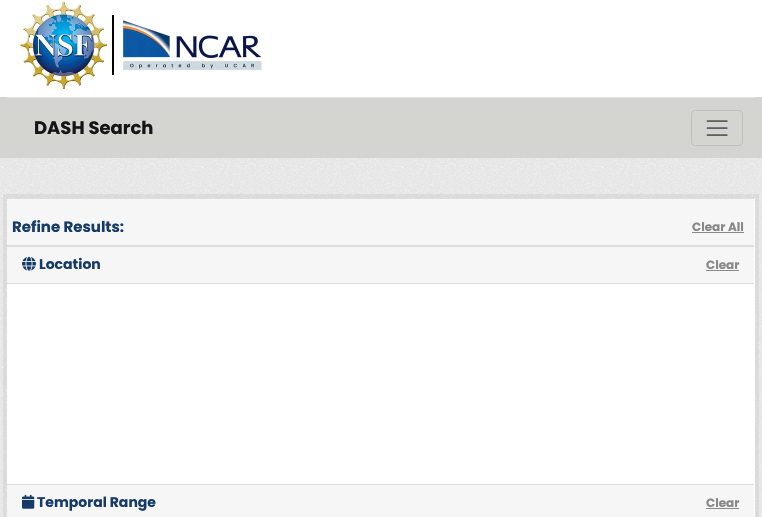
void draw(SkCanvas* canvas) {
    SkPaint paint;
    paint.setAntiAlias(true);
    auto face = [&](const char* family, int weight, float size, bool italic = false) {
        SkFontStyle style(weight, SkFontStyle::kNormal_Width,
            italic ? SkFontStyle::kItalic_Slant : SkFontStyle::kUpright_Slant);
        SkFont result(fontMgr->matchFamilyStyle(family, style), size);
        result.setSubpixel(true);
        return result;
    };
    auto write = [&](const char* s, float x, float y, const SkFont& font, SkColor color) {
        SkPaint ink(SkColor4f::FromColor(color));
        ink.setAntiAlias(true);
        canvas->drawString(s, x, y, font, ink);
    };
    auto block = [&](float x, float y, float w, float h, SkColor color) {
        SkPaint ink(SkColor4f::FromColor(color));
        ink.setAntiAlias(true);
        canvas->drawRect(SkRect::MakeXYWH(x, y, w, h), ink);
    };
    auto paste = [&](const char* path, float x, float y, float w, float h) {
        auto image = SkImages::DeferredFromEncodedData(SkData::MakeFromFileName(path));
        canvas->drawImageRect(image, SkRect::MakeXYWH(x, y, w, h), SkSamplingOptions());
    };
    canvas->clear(SK_ColorWHITE);
    paste("pic1.png", 20, 1, 87, 88);
    block(112, 15, 2, 60, SK_ColorBLACK);
    paste("pic2.png", 123, 20, 139, 50);
    block(0, 97, 762, 61, SkColorSetRGB(212, 212, 208));
    block(7, 97, 748, 1, SkColorSetRGB(222, 226, 230));
    auto kFont1 = face("Poppins", 700, 18);
    write("DASH Search", 34, 134, kFont1, SkColorSetRGB(21, 21, 21));
    paint.setStyle(SkPaint::kStroke_Style);
    paint.setStrokeWidth(1);
    paint.setColor(SkColorSetRGB(191, 191, 187));
    canvas->drawRoundRect(SkRect::MakeXYWH(691.5f, 110.5f, 51, 35), 3.5f, 3.5f, paint);
    paste("pic3.png", 706, 120, 22, 16);
    block(0, 158, 762, 359, SkColorSetRGB(238, 238, 238));
    paste("pic4.png", 0, 158, 762, 359);
    paint.setStrokeWidth(4);
    paint.setColor(SkColorSetARGB(13, 0, 0, 0));
    canvas->drawRect(SkRect::MakeXYWH(5, 196, 752, 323), paint);
    block(7, 198, 748, 319, SK_ColorWHITE);
    block(7, 199, 747, 46, SkColorSetRGB(246, 246, 246));
    block(7, 198, 747, 1, SkColorSetRGB(221, 221, 221));
    block(7, 245, 747, 2, SkColorSetRGB(221, 221, 221));
    auto kFont2 = face("Poppins", 700, 15);
    write("Refine Results:", 12, 232, kFont2, SkColorSetRGB(22, 59, 105));
    auto kFont3 = face("Poppins", 700, 12);
    write("Clear All", 692, 231, kFont3, SkColorSetRGB(136, 136, 136));
    block(692, 232, 52, 1, SkColorSetRGB(136, 136, 136));
    block(7, 247, 747, 36, SkColorSetRGB(246, 246, 246));
    block(7, 283, 747, 1, SkColorSetRGB(221, 221, 221));
    paste("pic5.png", 22, 256, 14, 15);
    auto kFont4 = face("Poppins", 700, 14);
    write("Location", 39, 269, kFont4, SkColorSetRGB(22, 59, 105));
    write("Clear", 706, 269, kFont3, SkColorSetRGB(136, 136, 136));
    block(706, 270, 33, 1, SkColorSetRGB(136, 136, 136));
    block(7, 485, 747, 32, SkColorSetRGB(246, 246, 246));
    block(7, 484, 747, 1, SkColorSetRGB(221, 221, 221));
    paste("pic6.png", 22, 494, 13, 15);
    write("Temporal Range", 37, 507, kFont4, SkColorSetRGB(22, 59, 105));
    write("Clear", 706, 507, kFont3, SkColorSetRGB(136, 136, 136));
    block(706, 508, 33, 1, SkColorSetRGB(136, 136, 136));
}
